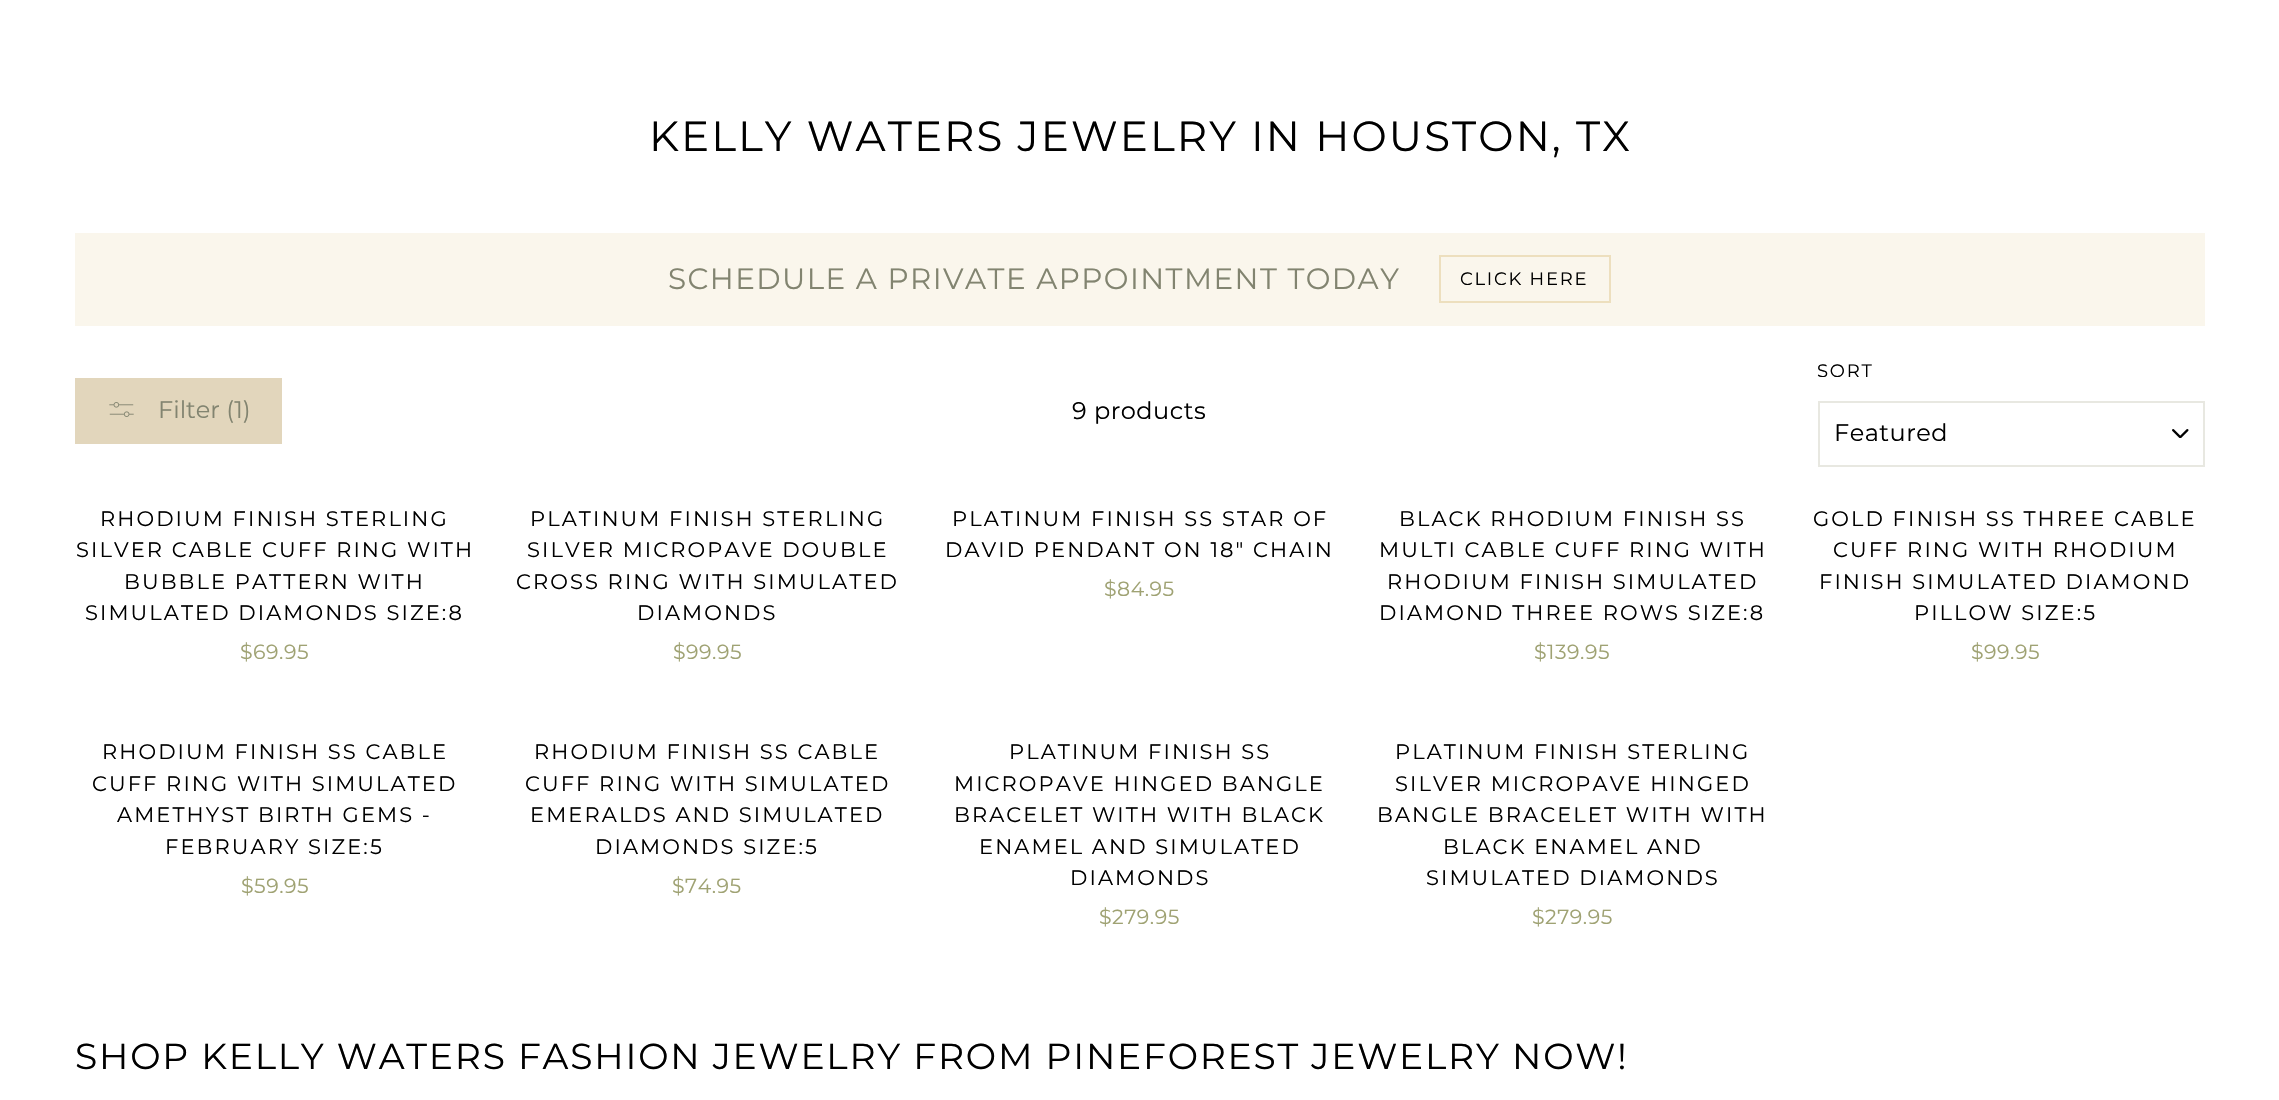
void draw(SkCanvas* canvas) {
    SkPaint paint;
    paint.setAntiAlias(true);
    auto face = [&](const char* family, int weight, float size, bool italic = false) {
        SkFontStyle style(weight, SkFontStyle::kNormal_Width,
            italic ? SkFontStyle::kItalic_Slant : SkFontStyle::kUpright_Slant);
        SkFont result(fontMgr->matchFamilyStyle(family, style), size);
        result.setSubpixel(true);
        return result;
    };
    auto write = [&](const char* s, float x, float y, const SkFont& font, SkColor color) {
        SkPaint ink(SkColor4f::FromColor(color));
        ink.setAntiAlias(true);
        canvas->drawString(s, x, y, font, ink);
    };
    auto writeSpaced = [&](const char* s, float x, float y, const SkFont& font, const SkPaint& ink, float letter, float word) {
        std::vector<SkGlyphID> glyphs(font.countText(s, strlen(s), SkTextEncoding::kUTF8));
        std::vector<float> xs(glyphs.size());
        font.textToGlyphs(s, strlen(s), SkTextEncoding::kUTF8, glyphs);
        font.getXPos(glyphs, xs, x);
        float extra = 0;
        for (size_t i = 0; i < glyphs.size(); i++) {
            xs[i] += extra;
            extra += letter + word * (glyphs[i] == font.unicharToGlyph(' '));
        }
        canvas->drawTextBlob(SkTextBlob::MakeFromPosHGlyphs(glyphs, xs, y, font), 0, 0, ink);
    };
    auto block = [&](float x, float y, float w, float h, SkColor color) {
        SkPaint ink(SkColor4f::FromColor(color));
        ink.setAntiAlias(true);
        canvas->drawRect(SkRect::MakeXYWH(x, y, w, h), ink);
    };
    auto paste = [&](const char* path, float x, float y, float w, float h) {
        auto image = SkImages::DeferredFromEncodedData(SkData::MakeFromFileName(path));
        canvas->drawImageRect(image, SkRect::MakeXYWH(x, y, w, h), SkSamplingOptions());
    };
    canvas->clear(SK_ColorWHITE);
    auto kFont1 = face("Montserrat", 400, 42);
    paint.setColor(SK_ColorBLACK);
    writeSpaced("KELLY WATERS JEWELRY IN HOUSTON, TX", 649, 151, kFont1, paint, 2.1f, 0);
    block(75, 233, 2130, 93, SkColorSetRGB(250, 246, 236));
    auto kFont2 = face("Montserrat", 400, 29.4f);
    paint.setColor(SkColorSetRGB(130, 132, 112));
    writeSpaced("SCHEDULE A PRIVATE APPOINTMENT TODAY", 668, 289, kFont2, paint, 1.45f, 0);
    paint.setStyle(SkPaint::kStroke_Style);
    paint.setStrokeWidth(2);
    paint.setColor(SkColorSetRGB(237, 223, 190));
    canvas->drawRect(SkRect::MakeXYWH(1440, 256, 170, 46), paint);
    auto kFont3 = face("Montserrat", 400, 18);
    paint.setStyle(SkPaint::kFill_Style);
    paint.setColor(SK_ColorBLACK);
    writeSpaced("CLICK HERE", 1460, 285, kFont3, paint, 1.75f, 0);
    block(75, 378, 207, 66, SkColorSetRGB(226, 214, 188));
    paste("pic1.png", 109, 402, 25, 15);
    auto kFont4 = face("Montserrat", 400, 24);
    write("Filter (1)", 158, 418, kFont4, SkColorSetRGB(130, 132, 112));
    writeSpaced("9 products", 1072, 419, kFont4, paint, 0.5f, 0);
    writeSpaced("SORT", 1817, 377, kFont3, paint, 1.75f, 0);
    paste("pic2.png", 2172, 429, 17, 9);
    paint.setStyle(SkPaint::kStroke_Style);
    paint.setColor(SkColorSetRGB(232, 232, 225));
    canvas->drawRect(SkRect::MakeXYWH(1819, 402, 385, 64), paint);
    paint.setStyle(SkPaint::kFill_Style);
    paint.setColor(SK_ColorBLACK);
    writeSpaced("Featured", 1834, 441, kFont4, paint, 0.5f, 0);
    auto kFont5 = face("Montserrat", 400, 21);
    writeSpaced("RHODIUM FINISH STERLING", 100, 526, kFont5, paint, 2.1f, 0);
    writeSpaced("SILVER CABLE CUFF RING WITH", 76, 557, kFont5, paint, 2.1f, 0);
    writeSpaced("BUBBLE PATTERN WITH", 124, 589, kFont5, paint, 2.1f, 0);
    writeSpaced("SIMULATED DIAMONDS SIZE:8", 85, 620, kFont5, paint, 2.1f, 0);
    auto kFont6 = face("Montserrat", 400, 20.5f);
    paint.setColor(SkColorSetRGB(159, 162, 115));
    writeSpaced("$69.95", 240, 659, kFont6, paint, 0.5f, 0);
    paint.setColor(SK_ColorBLACK);
    writeSpaced("PLATINUM FINISH STERLING", 530, 526, kFont5, paint, 2.1f, 0);
    writeSpaced("SILVER MICROPAVE DOUBLE", 527, 557, kFont5, paint, 2.1f, 0);
    writeSpaced("CROSS RING WITH SIMULATED", 516, 589, kFont5, paint, 2.1f, 0);
    writeSpaced("DIAMONDS", 637, 620, kFont5, paint, 2.1f, 0);
    paint.setColor(SkColorSetRGB(159, 162, 115));
    writeSpaced("$99.95", 673, 659, kFont6, paint, 0.5f, 0);
    paint.setColor(SK_ColorBLACK);
    writeSpaced("PLATINUM FINISH SS STAR OF", 952, 526, kFont5, paint, 2.1f, 0);
    writeSpaced("DAVID PENDANT ON 18\" CHAIN", 945, 557, kFont5, paint, 2.1f, 0);
    paint.setColor(SkColorSetRGB(159, 162, 115));
    writeSpaced("$84.95", 1104, 596, kFont6, paint, 0.5f, 0);
    paint.setColor(SK_ColorBLACK);
    writeSpaced("BLACK RHODIUM FINISH SS", 1399, 526, kFont5, paint, 2.1f, 0);
    writeSpaced("MULTI CABLE CUFF RING WITH", 1379, 557, kFont5, paint, 2.1f, 0);
    writeSpaced("RHODIUM FINISH SIMULATED", 1387, 589, kFont5, paint, 2.1f, 0);
    writeSpaced("DIAMOND THREE ROWS SIZE:8", 1379, 620, kFont5, paint, 2.1f, 0);
    paint.setColor(SkColorSetRGB(159, 162, 115));
    writeSpaced("$139.95", 1534, 659, kFont6, paint, 0.5f, 0);
    paint.setColor(SK_ColorBLACK);
    writeSpaced("GOLD FINISH SS THREE CABLE", 1813, 526, kFont5, paint, 2.1f, 0);
    writeSpaced("CUFF RING WITH RHODIUM", 1833, 557, kFont5, paint, 2.1f, 0);
    writeSpaced("FINISH SIMULATED DIAMOND", 1819, 589, kFont5, paint, 2.1f, 0);
    writeSpaced("PILLOW SIZE:5", 1914, 620, kFont5, paint, 2.1f, 0);
    paint.setColor(SkColorSetRGB(159, 162, 115));
    writeSpaced("$99.95", 1971, 659, kFont6, paint, 0.5f, 0);
    paint.setColor(SK_ColorBLACK);
    writeSpaced("RHODIUM FINISH SS CABLE", 102, 759, kFont5, paint, 2.1f, 0);
    writeSpaced("CUFF RING WITH SIMULATED", 92, 791, kFont5, paint, 2.1f, 0);
    writeSpaced("AMETHYST BIRTH GEMS -", 117, 822, kFont5, paint, 2.1f, 0);
    writeSpaced("FEBRUARY SIZE:5", 165, 854, kFont5, paint, 2.1f, 0);
    paint.setColor(SkColorSetRGB(159, 162, 115));
    writeSpaced("$59.95", 241, 893, kFont6, paint, 0.5f, 0);
    paint.setColor(SK_ColorBLACK);
    writeSpaced("RHODIUM FINISH SS CABLE", 534, 759, kFont5, paint, 2.1f, 0);
    writeSpaced("CUFF RING WITH SIMULATED", 525, 791, kFont5, paint, 2.1f, 0);
    writeSpaced("EMERALDS AND SIMULATED", 530, 822, kFont5, paint, 2.1f, 0);
    writeSpaced("DIAMONDS SIZE:5", 595, 854, kFont5, paint, 2.1f, 0);
    paint.setColor(SkColorSetRGB(159, 162, 115));
    writeSpaced("$74.95", 672, 893, kFont6, paint, 0.5f, 0);
    paint.setColor(SK_ColorBLACK);
    writeSpaced("PLATINUM FINISH SS", 1009, 759, kFont5, paint, 2.1f, 0);
    writeSpaced("MICROPAVE HINGED BANGLE", 954, 791, kFont5, paint, 2.1f, 0);
    writeSpaced("BRACELET WITH WITH BLACK", 954, 822, kFont5, paint, 2.1f, 0);
    writeSpaced("ENAMEL AND SIMULATED", 979, 854, kFont5, paint, 2.1f, 0);
    writeSpaced("DIAMONDS", 1070, 885, kFont5, paint, 2.1f, 0);
    paint.setColor(SkColorSetRGB(159, 162, 115));
    writeSpaced("$279.95", 1099, 924, kFont6, paint, 0.5f, 0);
    paint.setColor(SK_ColorBLACK);
    writeSpaced("PLATINUM FINISH STERLING", 1395, 759, kFont5, paint, 2.1f, 0);
    writeSpaced("SILVER MICROPAVE HINGED", 1395, 791, kFont5, paint, 2.1f, 0);
    writeSpaced("BANGLE BRACELET WITH WITH", 1377, 822, kFont5, paint, 2.1f, 0);
    writeSpaced("BLACK ENAMEL AND", 1443, 854, kFont5, paint, 2.1f, 0);
    writeSpaced("SIMULATED DIAMONDS", 1426, 885, kFont5, paint, 2.1f, 0);
    paint.setColor(SkColorSetRGB(159, 162, 115));
    writeSpaced("$279.95", 1532, 924, kFont6, paint, 0.5f, 0);
    auto kFont7 = face("Montserrat", 400, 36.1f);
    paint.setColor(SK_ColorBLACK);
    writeSpaced("SHOP KELLY WATERS FASHION JEWELRY FROM PINEFOREST JEWELRY NOW!", 75, 1069, kFont7, paint, 1.8f, 0);
}
